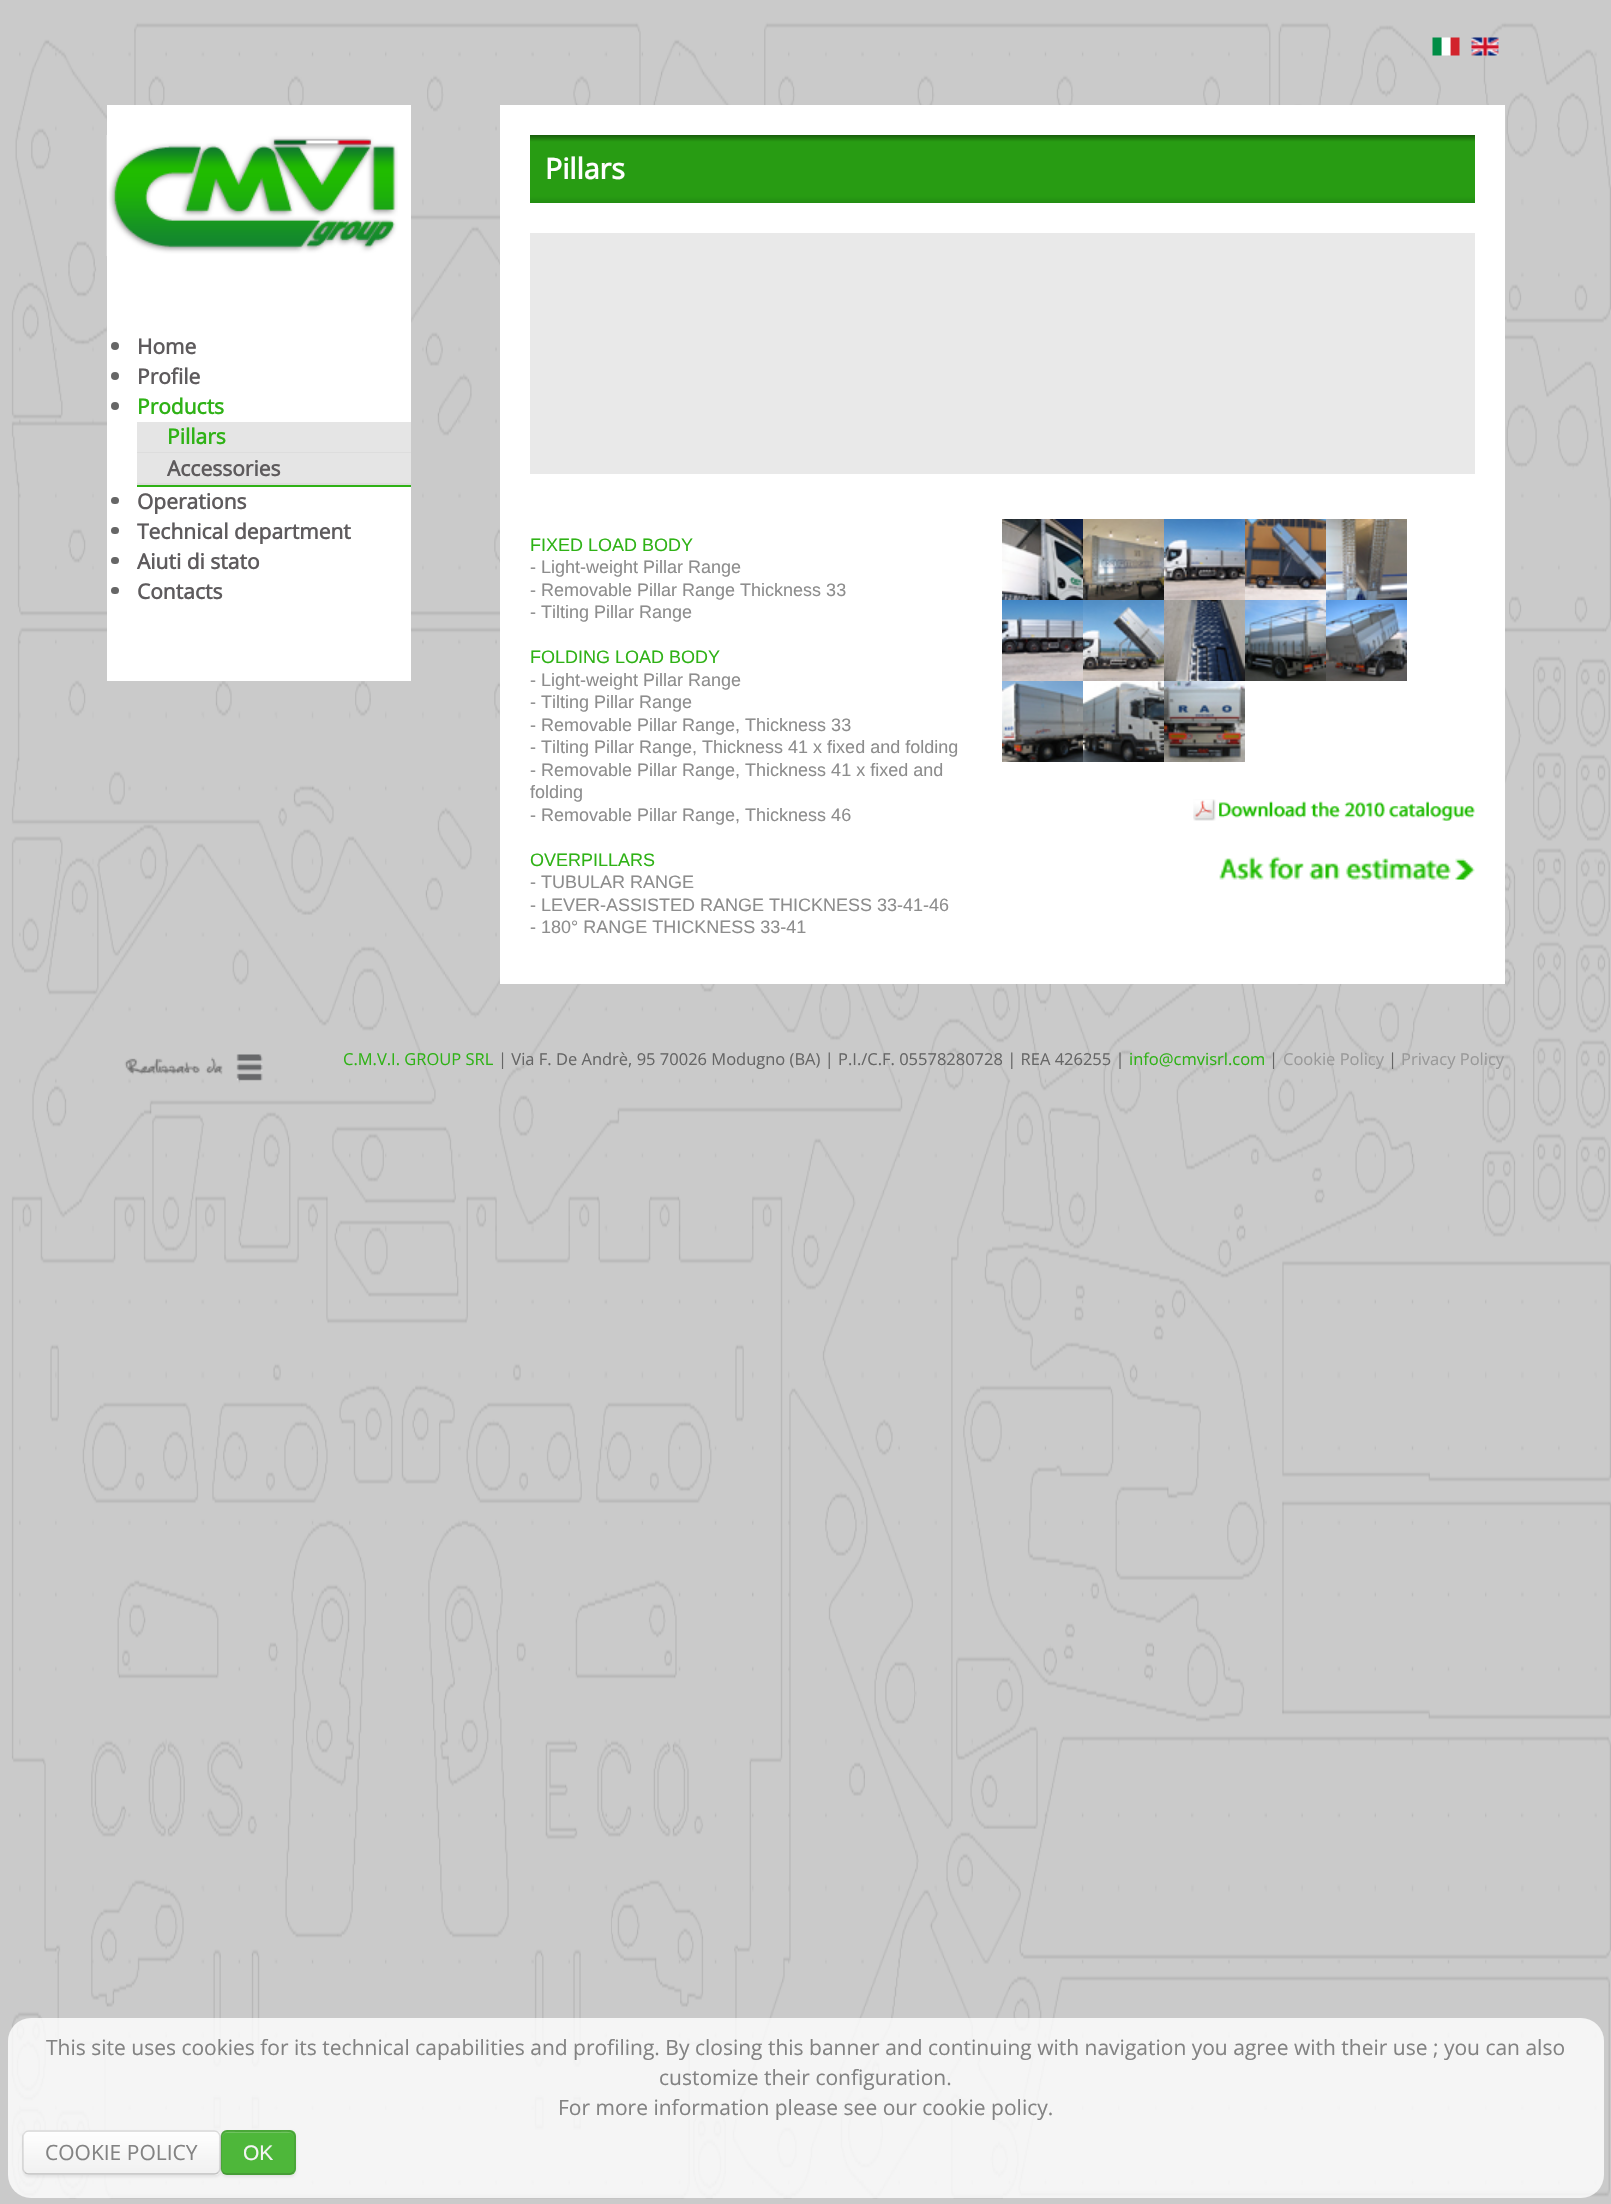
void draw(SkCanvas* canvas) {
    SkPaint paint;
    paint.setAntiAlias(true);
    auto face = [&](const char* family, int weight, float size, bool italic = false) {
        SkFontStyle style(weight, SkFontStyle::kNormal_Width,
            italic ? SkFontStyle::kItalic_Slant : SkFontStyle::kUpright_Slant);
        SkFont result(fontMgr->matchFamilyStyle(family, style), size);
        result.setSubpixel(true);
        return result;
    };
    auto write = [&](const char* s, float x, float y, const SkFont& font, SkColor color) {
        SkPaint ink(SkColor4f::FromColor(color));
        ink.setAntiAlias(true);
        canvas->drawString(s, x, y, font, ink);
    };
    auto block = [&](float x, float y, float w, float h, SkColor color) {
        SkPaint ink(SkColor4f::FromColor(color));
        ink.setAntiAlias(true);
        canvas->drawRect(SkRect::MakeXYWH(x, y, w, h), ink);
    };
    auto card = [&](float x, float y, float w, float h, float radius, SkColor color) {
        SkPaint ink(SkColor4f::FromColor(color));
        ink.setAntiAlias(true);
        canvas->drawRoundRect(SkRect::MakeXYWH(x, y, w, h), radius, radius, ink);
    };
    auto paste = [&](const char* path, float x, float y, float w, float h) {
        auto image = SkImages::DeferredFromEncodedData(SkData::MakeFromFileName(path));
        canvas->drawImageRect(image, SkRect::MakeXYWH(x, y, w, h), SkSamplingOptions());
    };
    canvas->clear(SK_ColorWHITE);
    paste("pic1.png", 0, 0, 1611, 2204);
    paste("pic2.png", 1432, 37, 28, 19);
    paste("pic3.png", 1471, 37, 28, 19);
    block(107, 105, 304, 576, SK_ColorWHITE);
    paste("pic4.png", 106, 135, 292, 121);
    paint.setColor(SkColorSetRGB(102, 102, 102));
    canvas->drawCircle(115, 346, 4, paint);
    auto kFont1 = face("Open Sans", 700, 21);
    write("Home", 137, 354, kFont1, SkColorSetRGB(94, 91, 93));
    canvas->drawCircle(115, 376, 4, paint);
    write("Profile", 137, 384, kFont1, SkColorSetRGB(94, 91, 93));
    block(137, 485, 274, 2, SkColorSetRGB(47, 178, 22));
    canvas->drawCircle(115, 406, 4, paint);
    write("Products", 137, 414, kFont1, SkColorSetRGB(47, 178, 22));
    block(137, 422, 274, 30, SkColorSetRGB(229, 229, 229));
    block(137, 452, 274, 1, SkColorSetRGB(221, 221, 221));
    write("Pillars", 167, 444, kFont1, SkColorSetRGB(47, 178, 22));
    block(137, 453, 274, 30, SkColorSetRGB(229, 229, 229));
    block(137, 483, 274, 2, SkColorSetRGB(221, 221, 221));
    write("Accessories", 167, 476, kFont1, SkColorSetRGB(94, 91, 93));
    card(111, 497, 8, 7, 3.5f, SkColorSetRGB(102, 102, 102));
    write("Operations", 137, 509, kFont1, SkColorSetRGB(94, 91, 93));
    card(111, 527, 8, 7, 3.5f, SkColorSetRGB(102, 102, 102));
    write("Technical department", 137, 539, kFont1, SkColorSetRGB(94, 91, 93));
    card(111, 557, 8, 7, 3.5f, SkColorSetRGB(102, 102, 102));
    write("Aiuti di stato", 137, 569, kFont1, SkColorSetRGB(94, 91, 93));
    card(111, 587, 8, 7, 3.5f, SkColorSetRGB(102, 102, 102));
    write("Contacts", 137, 599, kFont1, SkColorSetRGB(94, 91, 93));
    block(500, 105, 1005, 879, SK_ColorWHITE);
    {
        const SkColor colors[] = {SkColorSetRGB(24, 91, 11), SkColorSetRGB(40, 156, 19), SkColorSetRGB(40, 156, 19), SkColorSetRGB(34, 140, 18)};
        const float stops[] = {0, 0.1f, 0.9f, 1};
        const SkPoint ends[] = {{1002, 135}, {1002, 203}};
        paint.setShader(SkGradientShader::MakeLinear(ends, colors, stops, 4, SkTileMode::kClamp));
        paint.setAlpha(255);
    }
    canvas->drawRect(SkRect::MakeXYWH(530, 135, 945, 68), paint);
    auto kFont2 = face("Open Sans", 700, 28.5f);
    write("Pillars", 545, 179, kFont2, SK_ColorWHITE);
    block(530, 233, 945, 241, SkColorSetRGB(233, 233, 233));
    auto kFont3 = face("Liberation Sans", 400, 18);
    write("FIXED LOAD BODY", 530, 551, kFont3, SkColorSetRGB(47, 178, 22));
    write("- Light-weight Pillar Range", 530, 573, kFont3, SkColorSetRGB(141, 141, 141));
    write("- Removable Pillar Range Thickness 33", 530, 596, kFont3, SkColorSetRGB(141, 141, 141));
    write("- Tilting Pillar Range", 530, 618, kFont3, SkColorSetRGB(141, 141, 141));
    write("FOLDING LOAD BODY", 530, 663, kFont3, SkColorSetRGB(47, 178, 22));
    write("- Light-weight Pillar Range", 530, 686, kFont3, SkColorSetRGB(141, 141, 141));
    write("- Tilting Pillar Range", 530, 708, kFont3, SkColorSetRGB(141, 141, 141));
    write("- Removable Pillar Range, Thickness 33", 530, 731, kFont3, SkColorSetRGB(141, 141, 141));
    write("- Tilting Pillar Range, Thickness 41 x fixed and folding", 530, 753, kFont3, SkColorSetRGB(141, 141, 141));
    write("- Removable Pillar Range, Thickness 41 x fixed and", 530, 776, kFont3, SkColorSetRGB(141, 141, 141));
    write("folding", 530, 798, kFont3, SkColorSetRGB(141, 141, 141));
    write("- Removable Pillar Range, Thickness 46", 530, 821, kFont3, SkColorSetRGB(141, 141, 141));
    write("OVERPILLARS", 530, 866, kFont3, SkColorSetRGB(47, 178, 22));
    write("- TUBULAR RANGE", 530, 888, kFont3, SkColorSetRGB(141, 141, 141));
    write("- LEVER-ASSISTED RANGE THICKNESS 33-41-46", 530, 911, kFont3, SkColorSetRGB(141, 141, 141));
    write("- 180° RANGE THICKNESS 33-41", 530, 933, kFont3, SkColorSetRGB(141, 141, 141));
    paste("pic5.png", 1002, 519, 81, 81);
    paste("pic6.png", 1083, 519, 81, 81);
    paste("pic7.png", 1164, 519, 81, 81);
    paste("pic8.png", 1245, 519, 81, 81);
    paste("pic9.png", 1326, 519, 81, 81);
    paste("pic10.png", 1002, 600, 81, 81);
    paste("pic11.png", 1083, 600, 81, 81);
    paste("pic12.png", 1164, 600, 81, 81);
    paste("pic13.png", 1245, 600, 81, 81);
    paste("pic14.png", 1326, 600, 81, 81);
    paste("pic15.png", 1002, 681, 81, 81);
    paste("pic16.png", 1083, 681, 81, 81);
    paste("pic17.png", 1164, 681, 81, 81);
    paste("pic18.png", 1193, 799, 282, 22);
    paste("pic19.png", 1219, 856, 256, 24);
    paste("pic20.png", 124, 1057, 99, 18);
    paste("pic21.png", 236, 1054, 27, 27);
    auto kFont4 = face("Open Sans", 400, 16.5f);
    write("C.M.V.I. GROUP SRL", 343, 1065, kFont4, SkColorSetRGB(47, 178, 22));
    write("| Via F. De Andrè, 95 70026 Modugno (BA) | P.I./C.F. 05578280728 | REA 426255 |", 498, 1065, kFont4, SkColorSetRGB(102, 102, 102));
    write("info@cmvisrl.com", 1129, 1065, kFont4, SkColorSetRGB(47, 178, 22));
    write("|", 1269, 1065, kFont4, SkColorSetRGB(102, 102, 102));
    write("Cookie Policy", 1283, 1065, kFont4, SkColorSetRGB(153, 153, 153));
    write("|", 1388, 1065, kFont4, SkColorSetRGB(102, 102, 102));
    write("Privacy Policy", 1401, 1065, kFont4, SkColorSetRGB(153, 153, 153));
    card(8, 2018, 1596, 180, 23, SkColorSetARGB(204, 255, 255, 255));
    auto kFont5 = face("Open Sans", 400, 21);
    write("This site uses cookies for its technical capabilities and profiling. By closing this banner and continuing with navigation you agree with their use ; you can also", 46, 2055, kFont5, SkColorSetRGB(131, 131, 131));
    write("customize their configuration.", 659, 2085, kFont5, SkColorSetRGB(131, 131, 131));
    write("For more information please see our cookie policy.", 558, 2115, kFont5, SkColorSetRGB(131, 131, 131));
    canvas->save();
    canvas->clipPath(SkPathBuilder(SkPathFillType::kEvenOdd).moveTo(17, 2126).lineTo(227, 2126).lineTo(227, 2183).lineTo(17, 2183).close().moveTo(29, 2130).lineTo(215, 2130).cubicTo(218.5f, 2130, 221, 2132.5f, 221, 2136).lineTo(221, 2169).cubicTo(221, 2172.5f, 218.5f, 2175, 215, 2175).lineTo(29, 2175).cubicTo(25.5f, 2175, 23, 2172.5f, 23, 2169).lineTo(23, 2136).cubicTo(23, 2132.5f, 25.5f, 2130, 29, 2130).close().detach(), true);
    paint.setShader(nullptr);
    paint.setColor(SkColorSetARGB(20, 0, 0, 0));
    paint.setMaskFilter(SkMaskFilter::MakeBlur(kNormal_SkBlurStyle, 1.5f));
    canvas->drawRoundRect(SkRect::MakeXYWH(23, 2132, 198, 45), 6, 6, paint);
    paint.setMaskFilter(nullptr);
    canvas->restore();
    card(23, 2130, 198, 45, 6, SkColorSetARGB(204, 248, 248, 248));
    canvas->save();
    canvas->clipPath(SkPathBuilder().moveTo(29, 2130).lineTo(215, 2130).cubicTo(218.5f, 2130, 221, 2132.5f, 221, 2136).lineTo(221, 2169).cubicTo(221, 2172.5f, 218.5f, 2175, 215, 2175).lineTo(29, 2175).cubicTo(25.5f, 2175, 23, 2172.5f, 23, 2169).lineTo(23, 2136).cubicTo(23, 2132.5f, 25.5f, 2130, 29, 2130).close().detach(), true);
    {
        const SkColor colors[] = {SkColorSetARGB(204, 255, 255, 255), SkColorSetARGB(204, 238, 238, 238)};
        const float stops[] = {0, 1};
        const SkPoint ends[] = {{122, 2132}, {122, 2174}};
        paint.setShader(SkGradientShader::MakeLinear(ends, colors, stops, 2, SkTileMode::kClamp));
        paint.setAlpha(255);
    }
    canvas->drawRect(SkRect::MakeXYWH(23, 2132, 198, 42), paint);
    canvas->restore();
    paint.setStyle(SkPaint::kStroke_Style);
    paint.setStrokeWidth(1.5f);
    paint.setShader(nullptr);
    paint.setColor(SkColorSetARGB(51, 0, 0, 0));
    canvas->drawPath(SkPathBuilder().moveTo(218, 2172.5f).cubicTo(217, 2173.5f, 216, 2174, 214.5f, 2174).lineTo(28.5f, 2174).cubicTo(27, 2174, 26, 2173.5f, 25, 2172.5f).detach(), paint);
    paint.setColor(SkColorSetARGB(31, 0, 0, 0));
    canvas->drawPath(SkPathBuilder().moveTo(25, 2172.5f).cubicTo(24, 2171.5f, 23, 2170.5f, 23, 2169).lineTo(23, 2136).cubicTo(23, 2134.5f, 24, 2133.5f, 25, 2132.5f).cubicTo(26, 2131.5f, 27, 2131, 28.5f, 2131).lineTo(214.5f, 2131).cubicTo(216, 2131, 217, 2131.5f, 218, 2132.5f).cubicTo(219, 2133.5f, 220, 2134.5f, 220, 2136).lineTo(220, 2169).cubicTo(220, 2170.5f, 219, 2171.5f, 218, 2172.5f).detach(), paint);
    write("COOKIE POLICY", 45, 2160, kFont5, SkColorSetRGB(131, 131, 131));
    paint.setStyle(SkPaint::kFill_Style);
    paint.setColor(SkColorSetARGB(20, 0, 0, 0));
    paint.setMaskFilter(SkMaskFilter::MakeBlur(kNormal_SkBlurStyle, 1.5f));
    canvas->drawRoundRect(SkRect::MakeXYWH(221, 2132, 75, 45), 6, 6, paint);
    paint.setMaskFilter(nullptr);
    card(221, 2130, 75, 45, 6, SkColorSetRGB(78, 183, 58));
    paint.setColor(SkColorSetRGB(111, 195, 95));
    canvas->drawPath(SkPathBuilder().moveTo(226, 2133).lineTo(290, 2133).cubicTo(292, 2133, 294, 2135, 294, 2138).cubicTo(294, 2130, 284, 2132, 279, 2132).lineTo(237, 2132).cubicTo(232, 2132, 222, 2130, 222, 2138).cubicTo(222, 2135, 224, 2133, 226, 2133).close().detach(), paint);
    paint.setStyle(SkPaint::kStroke_Style);
    paint.setColor(SkColorSetARGB(64, 40, 40, 40));
    canvas->drawPath(SkPathBuilder().moveTo(293, 2172.5f).cubicTo(292, 2173.5f, 291, 2174, 289.5f, 2174).lineTo(226.5f, 2174).cubicTo(225, 2174, 224, 2173.5f, 223, 2172.5f).detach(), paint);
    paint.setColor(SkColorSetARGB(38, 40, 40, 40));
    canvas->drawPath(SkPathBuilder().moveTo(223, 2172.5f).cubicTo(222, 2171.5f, 221, 2170.5f, 221, 2169).lineTo(221, 2136).cubicTo(221, 2134.5f, 222, 2133.5f, 223, 2132.5f).cubicTo(224, 2131.5f, 225, 2131, 226.5f, 2131).lineTo(289.5f, 2131).cubicTo(291, 2131, 292, 2131.5f, 293, 2132.5f).cubicTo(294, 2133.5f, 295, 2134.5f, 295, 2136).lineTo(295, 2169).cubicTo(295, 2170.5f, 294, 2171.5f, 293, 2172.5f).detach(), paint);
    auto kFont6 = face("Liberation Sans", 400, 21);
    write("OK", 243, 2160, kFont6, SkColorSetRGB(244, 244, 244));
}
